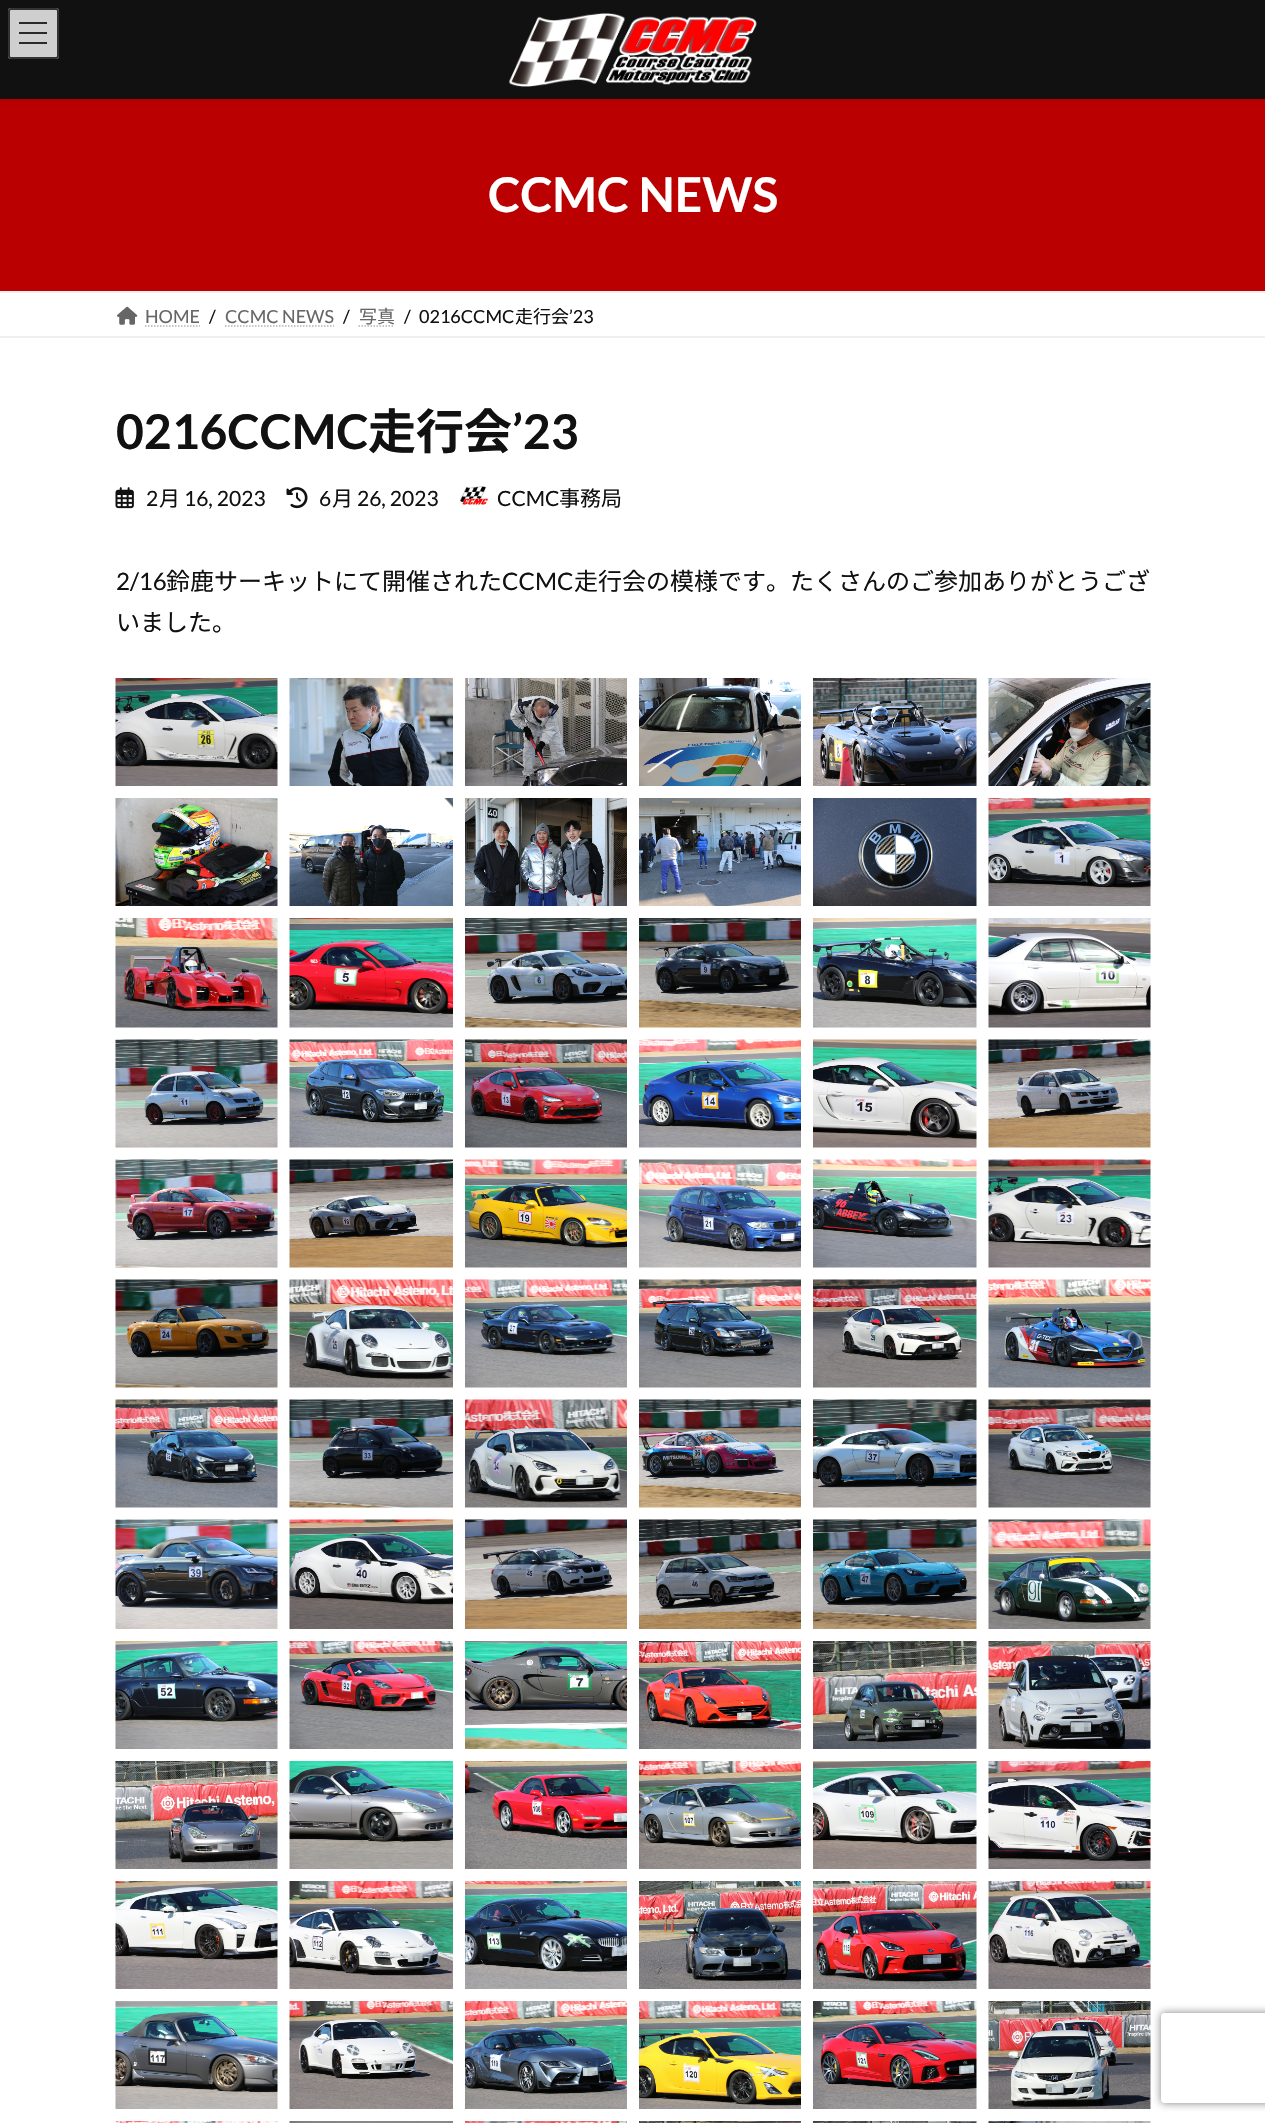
void draw(SkCanvas* canvas) {
    SkPaint paint;
    paint.setAntiAlias(true);
    auto face = [&](const char* family, int weight, float size, bool italic = false) {
        SkFontStyle style(weight, SkFontStyle::kNormal_Width,
            italic ? SkFontStyle::kItalic_Slant : SkFontStyle::kUpright_Slant);
        SkFont result(fontMgr->matchFamilyStyle(family, style), size);
        result.setSubpixel(true);
        return result;
    };
    auto write = [&](const char* s, float x, float y, const SkFont& font, SkColor color) {
        SkPaint ink(SkColor4f::FromColor(color));
        ink.setAntiAlias(true);
        canvas->drawString(s, x, y, font, ink);
    };
    auto block = [&](float x, float y, float w, float h, SkColor color) {
        SkPaint ink(SkColor4f::FromColor(color));
        ink.setAntiAlias(true);
        canvas->drawRect(SkRect::MakeXYWH(x, y, w, h), ink);
    };
    auto card = [&](float x, float y, float w, float h, float radius, SkColor color) {
        SkPaint ink(SkColor4f::FromColor(color));
        ink.setAntiAlias(true);
        canvas->drawRoundRect(SkRect::MakeXYWH(x, y, w, h), radius, radius, ink);
    };
    auto paste = [&](const char* path, float x, float y, float w, float h) {
        auto image = SkImages::DeferredFromEncodedData(SkData::MakeFromFileName(path));
        canvas->drawImageRect(image, SkRect::MakeXYWH(x, y, w, h), SkSamplingOptions());
    };
    canvas->clear(SK_ColorWHITE);
    block(0, 99, 1265, 192, SkColorSetRGB(186, 0, 0));
    paint.setColor(SkColorSetARGB(13, 0, 0, 0));
    paint.setMaskFilter(SkMaskFilter::MakeBlur(kNormal_SkBlurStyle, 2));
    canvas->drawRect(SkRect::MakeXYWH(0, 2, 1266, 99), paint);
    paint.setMaskFilter(nullptr);
    block(0, 0, 1265, 99, SkColorSetRGB(17, 17, 17));
    paste("pic1.png", 509, 13, 248, 74);
    card(8, 8, 51, 51, 3, SkColorSetRGB(207, 207, 207));
    block(19, 22, 28, 2, SkColorSetRGB(41, 41, 41));
    block(19, 32, 28, 2, SkColorSetRGB(41, 41, 41));
    block(19, 42, 28, 2, SkColorSetRGB(41, 41, 41));
    paint.setStyle(SkPaint::kStroke_Style);
    paint.setStrokeWidth(2);
    paint.setColor(SkColorSetRGB(51, 51, 51));
    canvas->drawRoundRect(SkRect::MakeXYWH(9, 9, 49, 49), 2, 2, paint);
    auto kFont1 = face("Lato", 700, 48);
    write("CCMC NEWS", 488, 212, kFont1, SK_ColorWHITE);
    block(0, 291, 1265, 2, SkColorSetRGB(240, 240, 240));
    block(0, 336, 1265, 2, SkColorSetRGB(240, 240, 240));
    paste("pic2.png", 117, 306, 21, 19);
    auto kFont2 = face("Lato", 400, 18);
    write("HOME", 145, 323, kFont2, SkColorSetRGB(102, 102, 102));
    paint.setStrokeWidth(1.5f);
    paint.setColor(SkColorSetRGB(179, 179, 179));
    paint.setPathEffect(SkDashPathEffect::Make({{1.5f, 1.5f}}, 0));
    canvas->drawPath(SkPathBuilder().moveTo(145, 326).lineTo(200, 326).detach(), paint);
    paint.setPathEffect(nullptr);
    write("/", 209, 323, kFont2, SkColorSetRGB(17, 17, 17));
    write("CCMC NEWS", 225, 323, kFont2, SkColorSetRGB(102, 102, 102));
    paint.setPathEffect(SkDashPathEffect::Make({{1.5f, 1.5f}}, 0));
    canvas->drawPath(SkPathBuilder().moveTo(225, 326).lineTo(334, 326).detach(), paint);
    paint.setPathEffect(nullptr);
    write("/", 343, 323, kFont2, SkColorSetRGB(17, 17, 17));
    auto kFont3 = face("Noto Sans JP", 400, 18);
    write("写真", 359, 323, kFont3, SkColorSetRGB(102, 102, 102));
    paint.setPathEffect(SkDashPathEffect::Make({{1.5f, 1.5f}}, 0));
    canvas->drawPath(SkPathBuilder().moveTo(358.5f, 326).lineTo(394.5f, 326).detach(), paint);
    paint.setPathEffect(nullptr);
    write("/", 404, 323, kFont2, SkColorSetRGB(17, 17, 17));
    write("0216CCMC", 419, 323, kFont2, SkColorSetRGB(17, 17, 17));
    write("走行会", 515, 323, kFont3, SkColorSetRGB(17, 17, 17));
    write("’23", 569, 323, kFont2, SkColorSetRGB(17, 17, 17));
    write("0216CCMC", 116, 449, kFont1, SkColorSetRGB(17, 17, 17));
    auto kFont4 = face("Noto Sans JP", 700, 48);
    write("走行会", 368, 449, kFont4, SkColorSetRGB(17, 17, 17));
    write("’23", 512, 449, kFont1, SkColorSetRGB(17, 17, 17));
    paste("pic3.png", 115, 487, 19, 22);
    auto kFont5 = face("Lato", 400, 21);
    write("2", 146, 506, kFont5, SkColorSetRGB(17, 17, 17));
    auto kFont6 = face("Noto Sans JP", 400, 21);
    write("月", 159, 506, kFont6, SkColorSetRGB(17, 17, 17));
    write("16, 2023", 184, 506, kFont5, SkColorSetRGB(17, 17, 17));
    paste("pic4.png", 286, 487, 22, 22);
    write("6", 319, 506, kFont5, SkColorSetRGB(17, 17, 17));
    write("月", 332, 506, kFont6, SkColorSetRGB(17, 17, 17));
    write("26, 2023", 357, 506, kFont5, SkColorSetRGB(17, 17, 17));
    paste("pic5.png", 460, 486, 29, 20);
    write("CCMC", 497, 506, kFont5, SkColorSetRGB(17, 17, 17));
    write("事務局", 559, 506, kFont6, SkColorSetRGB(17, 17, 17));
    auto kFont7 = face("Lato", 400, 24);
    write("2/16", 116, 590, kFont7, SkColorSetRGB(17, 17, 17));
    auto kFont8 = face("Noto Sans JP", 400, 24);
    write("鈴鹿サーキットにて開催された", 166, 590, kFont8, SkColorSetRGB(17, 17, 17));
    write("CCMC", 502, 590, kFont7, SkColorSetRGB(17, 17, 17));
    write("走行会の模様です。たくさんのご参加ありがとうござ", 574, 590, kFont8, SkColorSetRGB(17, 17, 17));
    write("いました。", 116, 631, kFont8, SkColorSetRGB(17, 17, 17));
    paste("pic6.png", 115, 678, 163, 108);
    paste("pic7.png", 289, 678, 164, 108);
    paste("pic8.png", 465, 678, 162, 108);
    paste("pic9.png", 639, 678, 162, 108);
    paste("pic10.png", 813, 678, 164, 108);
    paste("pic11.png", 988, 678, 163, 108);
    paste("pic12.png", 115, 798, 163, 108);
    paste("pic13.png", 289, 798, 164, 108);
    paste("pic14.png", 465, 798, 162, 108);
    paste("pic15.png", 639, 798, 162, 108);
    paste("pic16.png", 813, 798, 164, 108);
    paste("pic17.png", 988, 798, 163, 108);
    paste("pic18.png", 115, 918, 163, 110);
    paste("pic19.png", 289, 918, 164, 110);
    paste("pic20.png", 465, 918, 162, 110);
    paste("pic21.png", 639, 918, 162, 110);
    paste("pic22.png", 813, 918, 164, 110);
    paste("pic23.png", 988, 918, 163, 110);
    paste("pic24.png", 115, 1039, 163, 109);
    paste("pic25.png", 289, 1039, 164, 109);
    paste("pic26.png", 465, 1039, 162, 109);
    paste("pic27.png", 639, 1039, 162, 109);
    paste("pic28.png", 813, 1039, 164, 109);
    paste("pic29.png", 988, 1039, 163, 109);
    paste("pic30.png", 115, 1159, 163, 109);
    paste("pic31.png", 289, 1159, 164, 109);
    paste("pic32.png", 465, 1159, 162, 109);
    paste("pic33.png", 639, 1159, 162, 109);
    paste("pic34.png", 813, 1159, 164, 109);
    paste("pic35.png", 988, 1159, 163, 109);
    paste("pic36.png", 115, 1279, 163, 109);
    paste("pic37.png", 289, 1279, 164, 109);
    paste("pic38.png", 465, 1279, 162, 109);
    paste("pic39.png", 639, 1279, 162, 109);
    paste("pic40.png", 813, 1279, 164, 109);
    paste("pic41.png", 988, 1279, 163, 109);
    paste("pic42.png", 115, 1399, 163, 109);
    paste("pic43.png", 289, 1399, 164, 109);
    paste("pic44.png", 465, 1399, 162, 109);
    paste("pic45.png", 639, 1399, 162, 109);
    paste("pic46.png", 813, 1399, 164, 109);
    paste("pic47.png", 988, 1399, 163, 109);
    paste("pic48.png", 115, 1519, 163, 110);
    paste("pic49.png", 289, 1519, 164, 110);
    paste("pic50.png", 465, 1519, 162, 110);
    paste("pic51.png", 639, 1519, 162, 110);
    paste("pic52.png", 813, 1519, 164, 110);
    paste("pic53.png", 988, 1519, 163, 110);
    paste("pic54.png", 115, 1641, 163, 108);
    paste("pic55.png", 289, 1641, 164, 108);
    paste("pic56.png", 465, 1641, 162, 108);
    paste("pic57.png", 639, 1641, 162, 108);
    paste("pic58.png", 813, 1641, 164, 108);
    paste("pic59.png", 988, 1641, 163, 108);
    paste("pic60.png", 115, 1761, 163, 108);
    paste("pic61.png", 289, 1761, 164, 108);
    paste("pic62.png", 465, 1761, 162, 108);
    paste("pic63.png", 639, 1761, 162, 108);
    paste("pic64.png", 813, 1761, 164, 108);
    paste("pic65.png", 988, 1761, 163, 108);
    paste("pic66.png", 115, 1881, 163, 108);
    paste("pic67.png", 289, 1881, 164, 108);
    paste("pic68.png", 465, 1881, 162, 108);
    paste("pic69.png", 639, 1881, 162, 108);
    paste("pic70.png", 813, 1881, 164, 108);
    paste("pic71.png", 988, 1881, 163, 108);
    paste("pic72.png", 115, 2001, 163, 108);
    paste("pic73.png", 289, 2001, 164, 108);
    paste("pic74.png", 465, 2001, 162, 108);
    paste("pic75.png", 639, 2001, 162, 108);
    paste("pic76.png", 813, 2001, 164, 108);
    paste("pic77.png", 988, 2001, 163, 108);
    paste("pic78.png", 115, 2121, 163, 2);
    paste("pic79.png", 289, 2121, 164, 2);
    paste("pic80.png", 465, 2121, 162, 2);
    paste("pic81.png", 639, 2121, 162, 2);
    paste("pic82.png", 813, 2121, 164, 2);
    paste("pic83.png", 988, 2121, 163, 2);
    canvas->save();
    canvas->clipPath(SkPathBuilder(SkPathFillType::kEvenOdd).moveTo(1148, 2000).lineTo(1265, 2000).lineTo(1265, 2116).lineTo(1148, 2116).close().moveTo(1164, 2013).lineTo(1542, 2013).cubicTo(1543.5f, 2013, 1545, 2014.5f, 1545, 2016).lineTo(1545, 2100).cubicTo(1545, 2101.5f, 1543.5f, 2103, 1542, 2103).lineTo(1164, 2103).cubicTo(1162.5f, 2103, 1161, 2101.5f, 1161, 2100).lineTo(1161, 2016).cubicTo(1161, 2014.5f, 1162.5f, 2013, 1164, 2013).close().detach(), true);
    paint.setStyle(SkPaint::kFill_Style);
    paint.setColor(SkColorSetRGB(128, 128, 128));
    paint.setMaskFilter(SkMaskFilter::MakeBlur(kNormal_SkBlurStyle, 4));
    canvas->drawRoundRect(SkRect::MakeXYWH(1161, 2013, 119, 90), 3, 3, paint);
    paint.setMaskFilter(nullptr);
    canvas->restore();
}
